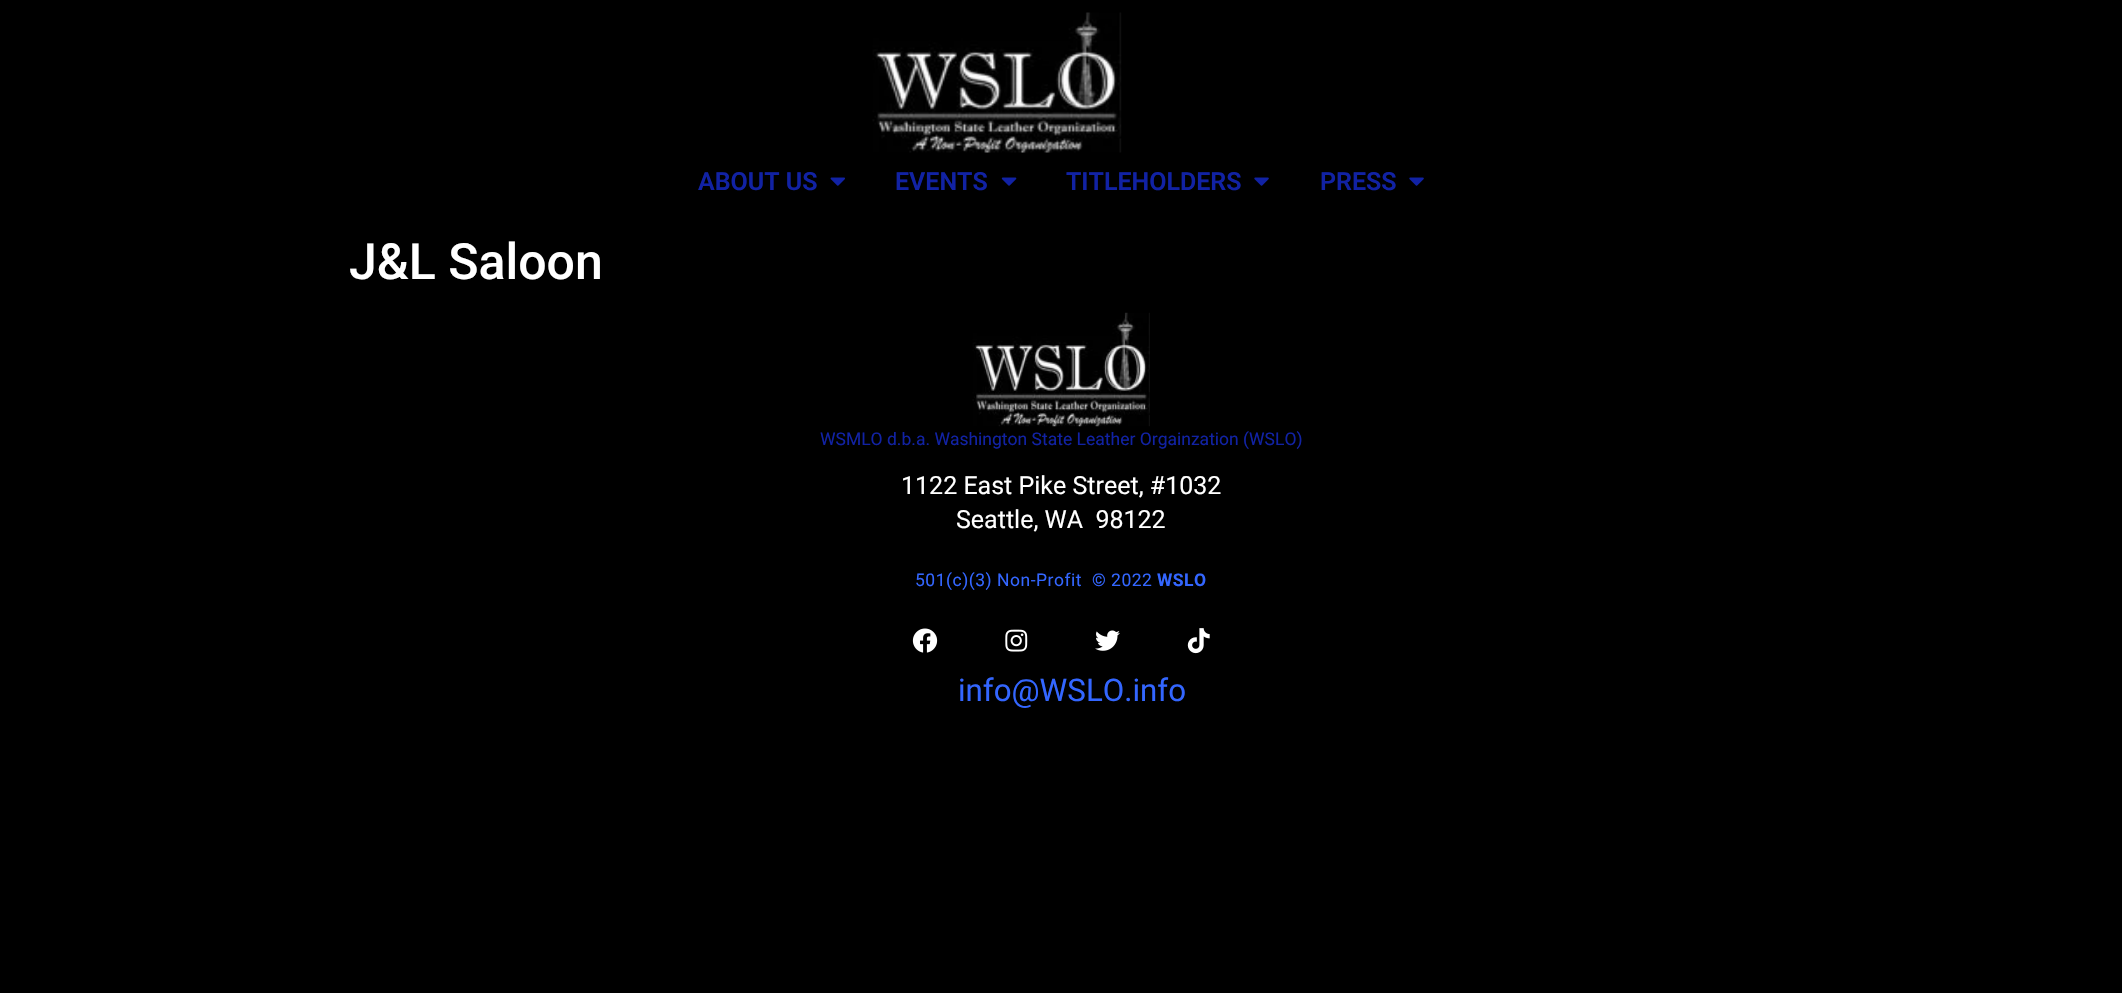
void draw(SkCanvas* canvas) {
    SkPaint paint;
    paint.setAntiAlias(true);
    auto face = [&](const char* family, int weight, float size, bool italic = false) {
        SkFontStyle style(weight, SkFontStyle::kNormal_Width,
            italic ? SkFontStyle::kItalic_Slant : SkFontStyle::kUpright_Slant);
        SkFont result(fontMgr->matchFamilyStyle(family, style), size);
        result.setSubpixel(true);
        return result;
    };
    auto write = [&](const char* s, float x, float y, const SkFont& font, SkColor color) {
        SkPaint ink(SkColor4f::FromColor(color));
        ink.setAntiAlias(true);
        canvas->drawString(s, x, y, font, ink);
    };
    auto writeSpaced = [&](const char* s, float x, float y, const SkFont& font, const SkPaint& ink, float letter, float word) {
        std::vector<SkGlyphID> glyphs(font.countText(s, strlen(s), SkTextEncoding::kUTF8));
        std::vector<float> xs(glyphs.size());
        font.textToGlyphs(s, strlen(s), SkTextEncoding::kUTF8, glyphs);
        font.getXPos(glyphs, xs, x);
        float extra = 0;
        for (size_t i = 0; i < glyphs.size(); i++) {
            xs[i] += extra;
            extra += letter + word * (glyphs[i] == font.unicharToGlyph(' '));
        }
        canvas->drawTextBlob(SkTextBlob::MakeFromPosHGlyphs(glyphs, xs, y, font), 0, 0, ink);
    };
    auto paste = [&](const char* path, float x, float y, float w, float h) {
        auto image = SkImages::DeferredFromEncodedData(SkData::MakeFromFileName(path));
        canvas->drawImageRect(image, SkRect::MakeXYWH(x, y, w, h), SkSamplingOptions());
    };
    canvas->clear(SK_ColorBLACK);
    paste("pic1.png", 872, 12, 250, 141);
    auto kFont1 = face("Roboto", 600, 25);
    write("ABOUT US", 698, 190, kFont1, SkColorSetRGB(17, 34, 164));
    paste("pic2.png", 830, 177, 15, 9);
    write("EVENTS", 895, 190, kFont1, SkColorSetRGB(17, 34, 164));
    paste("pic3.png", 1001, 177, 16, 9);
    write("TITLEHOLDERS", 1066, 190, kFont1, SkColorSetRGB(17, 34, 164));
    paste("pic4.png", 1254, 177, 15, 9);
    write("PRESS", 1320, 190, kFont1, SkColorSetRGB(17, 34, 164));
    paste("pic4.png", 1409, 177, 15, 9);
    auto kFont2 = face("Roboto", 500, 50);
    write("J&L Saloon", 349, 279, kFont2, SK_ColorWHITE);
    paste("pic5.png", 972, 312, 178, 115);
    auto kFont3 = face("Roboto", 400, 17.5f);
    write("WSMLO d.b.a. Washington State Leather Orgainzation (WSLO)", 820, 445, kFont3, SkColorSetRGB(17, 34, 164));
    auto kFont4 = face("Roboto", 400, 25);
    write("1122 East Pike Street, #1032", 901, 494, kFont4, SK_ColorWHITE);
    write("Seattle, WA  98122", 956, 528, kFont4, SK_ColorWHITE);
    paint.setColor(SkColorSetRGB(51, 102, 255));
    writeSpaced("501(c)(3) Non-Profit", 915, 586, kFont3, paint, 0.5f, 0);
    writeSpaced("© 2022", 1092, 586, kFont3, paint, 0.5f, 0);
    auto kFont5 = face("Roboto", 700, 17.5f);
    writeSpaced("WSLO", 1157, 586, kFont5, paint, 0.5f, 0);
    paste("pic6.png", 912, 628, 26, 25);
    paste("pic7.png", 1005, 629, 23, 23);
    paste("pic8.png", 1095, 630, 25, 21);
    paste("pic9.png", 1187, 628, 23, 26);
    auto kFont6 = face("Roboto", 400, 31.25f);
    write("info@WSLO.info", 958, 701, kFont6, SkColorSetRGB(51, 102, 255));
}
